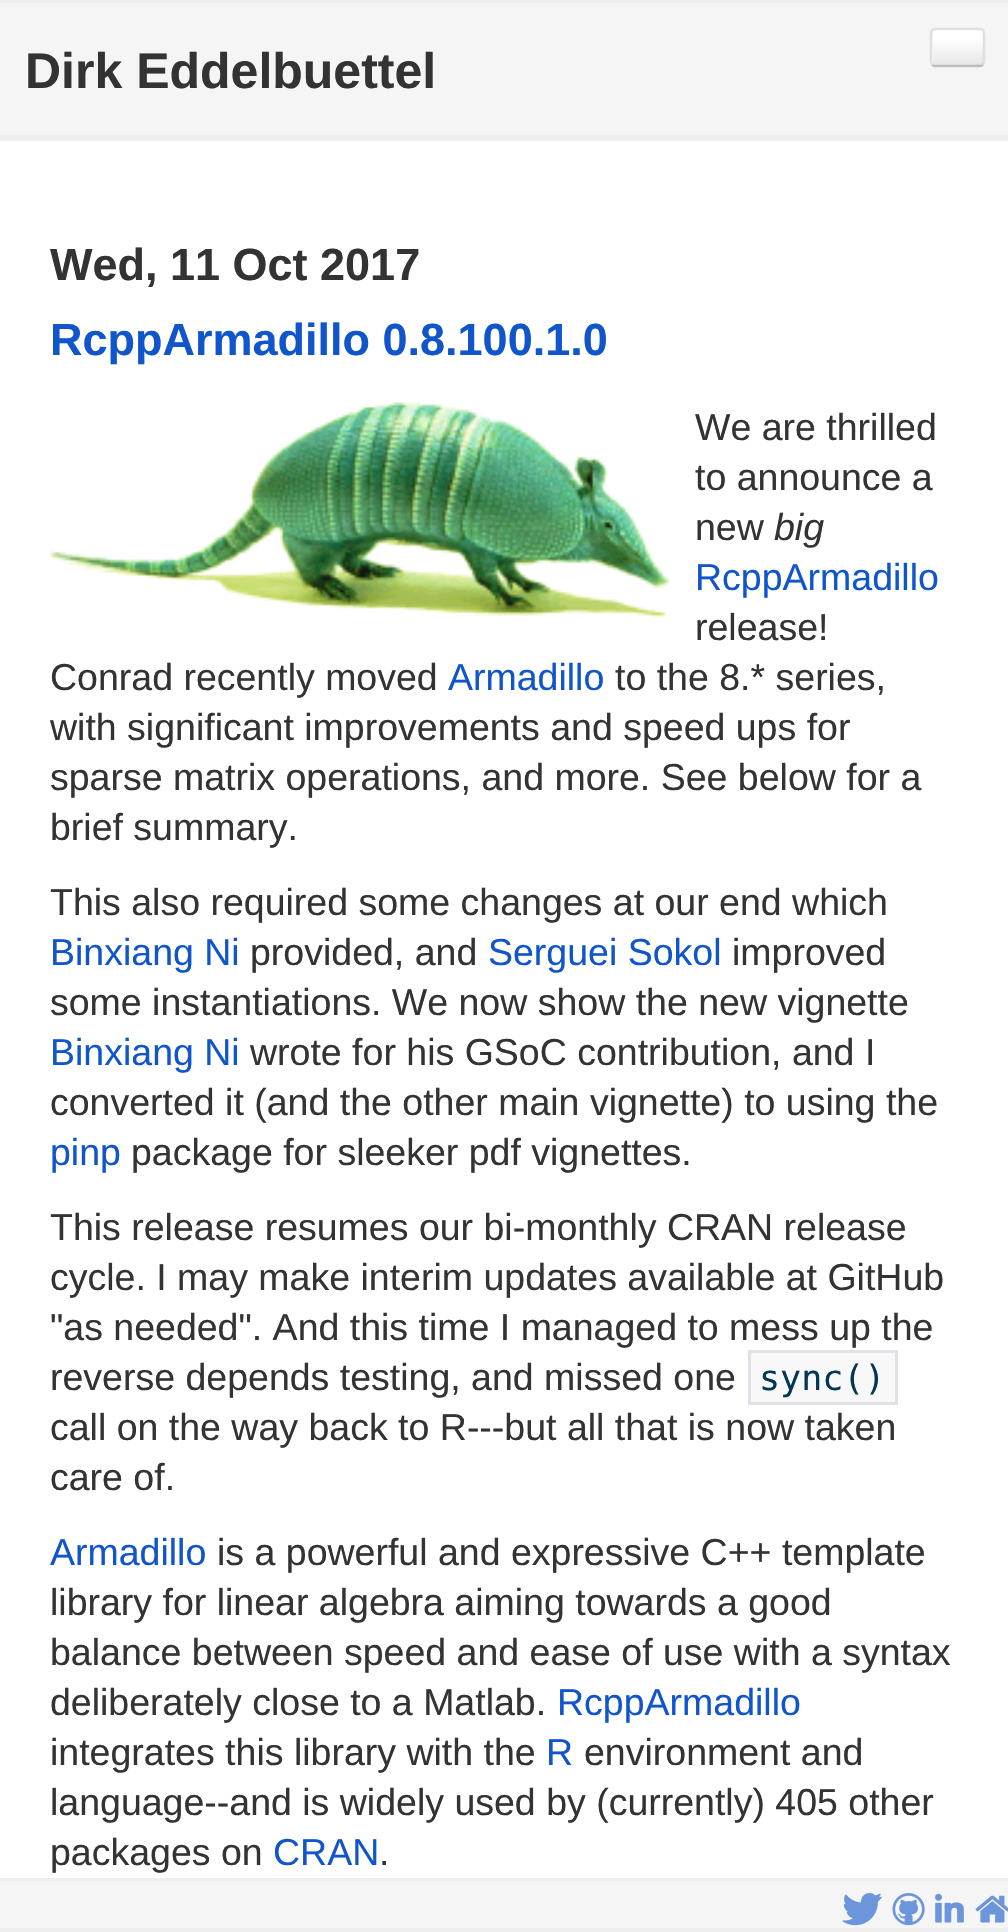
void draw(SkCanvas* canvas) {
    SkPaint paint;
    paint.setAntiAlias(true);
    auto face = [&](const char* family, int weight, float size, bool italic = false) {
        SkFontStyle style(weight, SkFontStyle::kNormal_Width,
            italic ? SkFontStyle::kItalic_Slant : SkFontStyle::kUpright_Slant);
        SkFont result(fontMgr->matchFamilyStyle(family, style), size);
        result.setSubpixel(true);
        return result;
    };
    auto write = [&](const char* s, float x, float y, const SkFont& font, SkColor color) {
        SkPaint ink(SkColor4f::FromColor(color));
        ink.setAntiAlias(true);
        canvas->drawString(s, x, y, font, ink);
    };
    auto block = [&](float x, float y, float w, float h, SkColor color) {
        SkPaint ink(SkColor4f::FromColor(color));
        ink.setAntiAlias(true);
        canvas->drawRect(SkRect::MakeXYWH(x, y, w, h), ink);
    };
    auto card = [&](float x, float y, float w, float h, float radius, SkColor color) {
        SkPaint ink(SkColor4f::FromColor(color));
        ink.setAntiAlias(true);
        canvas->drawRoundRect(SkRect::MakeXYWH(x, y, w, h), radius, radius, ink);
    };
    auto paste = [&](const char* path, float x, float y, float w, float h) {
        auto image = SkImages::DeferredFromEncodedData(SkData::MakeFromFileName(path));
        canvas->drawImageRect(image, SkRect::MakeXYWH(x, y, w, h), SkSamplingOptions());
    };
    canvas->clear(SK_ColorWHITE);
    block(0, 3, 1008, 132, SkColorSetRGB(245, 245, 245));
    block(0, 135, 1008, 6, SkColorSetRGB(238, 238, 238));
    block(0, 0, 1008, 3, SkColorSetRGB(238, 238, 238));
    auto kFont1 = face("Liberation Sans", 700, 50);
    write("Dirk Eddelbuettel", 25, 88, kFont1, SkColorSetRGB(51, 51, 51));
    card(930, 28, 55, 40, 5, SkColorSetRGB(250, 250, 250));
    {
        const SkColor colors[] = {SK_ColorWHITE, SK_ColorWHITE, SkColorSetRGB(230, 230, 230)};
        const float stops[] = {0, 0.25f, 1};
        const SkPoint ends[] = {{958, 30}, {958, 65}};
        paint.setShader(SkGradientShader::MakeLinear(ends, colors, stops, 3, SkTileMode::kClamp));
        paint.setAlpha(255);
    }
    canvas->drawRect(SkRect::MakeXYWH(933, 30, 50, 35), paint);
    paint.setStyle(SkPaint::kStroke_Style);
    paint.setStrokeWidth(2.5f);
    paint.setShader(nullptr);
    paint.setColor(SkColorSetRGB(188, 188, 188));
    canvas->drawPath(SkPathBuilder().moveTo(982.5f, 65).cubicTo(982, 66, 981, 66, 980, 66).lineTo(935, 66).cubicTo(934, 66, 933, 66, 932.5f, 65).detach(), paint);
    paint.setColor(SkColorSetARGB(26, 0, 0, 0));
    canvas->drawPath(SkPathBuilder().moveTo(932.5f, 65).cubicTo(930.5f, 63.5f, 931, 59.5f, 931, 57.5f).lineTo(931, 37.5f).cubicTo(931, 27.5f, 932, 29, 942.5f, 29).lineTo(972.5f, 29).cubicTo(983, 29, 984, 27.5f, 984, 37.5f).lineTo(984, 57.5f).cubicTo(984, 59.5f, 984.5f, 63.5f, 982.5f, 65).detach(), paint);
    auto kFont2 = face("Liberation Sans", 700, 45);
    write("Wed, 11 Oct 2017", 50, 280, kFont2, SkColorSetRGB(51, 51, 51));
    write("RcppArmadillo 0.8.100.1.0", 50, 355, kFont2, SkColorSetRGB(17, 85, 204));
    paste("pic1.png", 50, 402, 620, 216);
    auto kFont3 = face("Liberation Sans", 400, 37.5f);
    write("We are thrilled", 695, 440, kFont3, SkColorSetRGB(51, 51, 51));
    write("to announce a", 695, 490, kFont3, SkColorSetRGB(51, 51, 51));
    write("new", 695, 540, kFont3, SkColorSetRGB(51, 51, 51));
    auto kFont4 = face("Liberation Sans", 400, 37.5f, true);
    write("big", 774, 540, kFont4, SkColorSetRGB(51, 51, 51));
    write("RcppArmadillo", 695, 590, kFont3, SkColorSetRGB(17, 85, 204));
    write("release!", 695, 640, kFont3, SkColorSetRGB(51, 51, 51));
    write("Conrad recently moved", 50, 690, kFont3, SkColorSetRGB(51, 51, 51));
    write("Armadillo", 448, 690, kFont3, SkColorSetRGB(17, 85, 204));
    write("to the 8.* series,", 615, 690, kFont3, SkColorSetRGB(51, 51, 51));
    write("with significant improvements and speed ups for", 50, 740, kFont3, SkColorSetRGB(51, 51, 51));
    write("sparse matrix operations, and more. See below for a", 50, 790, kFont3, SkColorSetRGB(51, 51, 51));
    write("brief summary.", 50, 840, kFont3, SkColorSetRGB(51, 51, 51));
    write("This also required some changes at our end which", 50, 915, kFont3, SkColorSetRGB(51, 51, 51));
    write("Binxiang Ni", 50, 965, kFont3, SkColorSetRGB(17, 85, 204));
    write("provided, and", 250, 965, kFont3, SkColorSetRGB(51, 51, 51));
    write("Serguei Sokol", 488, 965, kFont3, SkColorSetRGB(17, 85, 204));
    write("improved", 732, 965, kFont3, SkColorSetRGB(51, 51, 51));
    write("some instantiations. We now show the new vignette", 50, 1015, kFont3, SkColorSetRGB(51, 51, 51));
    write("Binxiang Ni", 50, 1065, kFont3, SkColorSetRGB(17, 85, 204));
    write("wrote for his GSoC contribution, and I", 250, 1065, kFont3, SkColorSetRGB(51, 51, 51));
    write("converted it (and the other main vignette) to using the", 50, 1115, kFont3, SkColorSetRGB(51, 51, 51));
    write("pinp", 50, 1165, kFont3, SkColorSetRGB(17, 85, 204));
    write("package for sleeker pdf vignettes.", 131, 1165, kFont3, SkColorSetRGB(51, 51, 51));
    write("This release resumes our bi-monthly CRAN release", 50, 1240, kFont3, SkColorSetRGB(51, 51, 51));
    write("cycle. I may make interim updates available at GitHub", 50, 1290, kFont3, SkColorSetRGB(51, 51, 51));
    write("\"as needed\". And this time I managed to mess up the", 50, 1340, kFont3, SkColorSetRGB(51, 51, 51));
    write("reverse depends testing, and missed one", 50, 1390, kFont3, SkColorSetRGB(51, 51, 51));
    paint.setStyle(SkPaint::kFill_Style);
    paint.setColor(SkColorSetRGB(248, 248, 248));
    canvas->drawRect(SkRect::MakeXYWH(749.5f, 1351.5f, 147, 52), paint);
    paint.setStyle(SkPaint::kStroke_Style);
    paint.setStrokeWidth(3);
    paint.setColor(SkColorSetRGB(225, 225, 232));
    canvas->drawRect(SkRect::MakeXYWH(749.5f, 1351.5f, 147, 52), paint);
    auto kFont5 = face("DejaVu Sans Mono", 400, 35);
    write("sync()", 759, 1390, kFont5, SkColorSetRGB(4, 55, 85));
    write("call on the way back to R---but all that is now taken", 50, 1440, kFont3, SkColorSetRGB(51, 51, 51));
    write("care of.", 50, 1490, kFont3, SkColorSetRGB(51, 51, 51));
    write("Armadillo", 50, 1565, kFont3, SkColorSetRGB(17, 85, 204));
    write("is a powerful and expressive C++ template", 217, 1565, kFont3, SkColorSetRGB(51, 51, 51));
    write("library for linear algebra aiming towards a good", 50, 1615, kFont3, SkColorSetRGB(51, 51, 51));
    write("balance between speed and ease of use with a syntax", 50, 1665, kFont3, SkColorSetRGB(51, 51, 51));
    write("deliberately close to a Matlab.", 50, 1715, kFont3, SkColorSetRGB(51, 51, 51));
    write("RcppArmadillo", 557, 1715, kFont3, SkColorSetRGB(17, 85, 204));
    write("integrates this library with the", 50, 1765, kFont3, SkColorSetRGB(51, 51, 51));
    write("R", 546, 1765, kFont3, SkColorSetRGB(17, 85, 204));
    write("environment and", 584, 1765, kFont3, SkColorSetRGB(51, 51, 51));
    write("language--and is widely used by (currently) 405 other", 50, 1815, kFont3, SkColorSetRGB(51, 51, 51));
    write("packages on", 50, 1865, kFont3, SkColorSetRGB(51, 51, 51));
    write("CRAN", 273, 1865, kFont3, SkColorSetRGB(17, 85, 204));
    write(".", 379, 1865, kFont3, SkColorSetRGB(51, 51, 51));
    block(0, 1881, 1008, 47, SkColorSetRGB(245, 245, 245));
    block(0, 1928, 1008, 4, SkColorSetRGB(238, 238, 238));
    block(0, 1878, 1008, 3, SkColorSetRGB(238, 238, 238));
    paste("pic2.png", 842, 1893, 40, 33);
    paste("pic3.png", 892, 1893, 33, 33);
    paste("pic4.png", 935, 1893, 29, 30);
    paste("pic5.png", 975, 1895, 33, 28);
}
